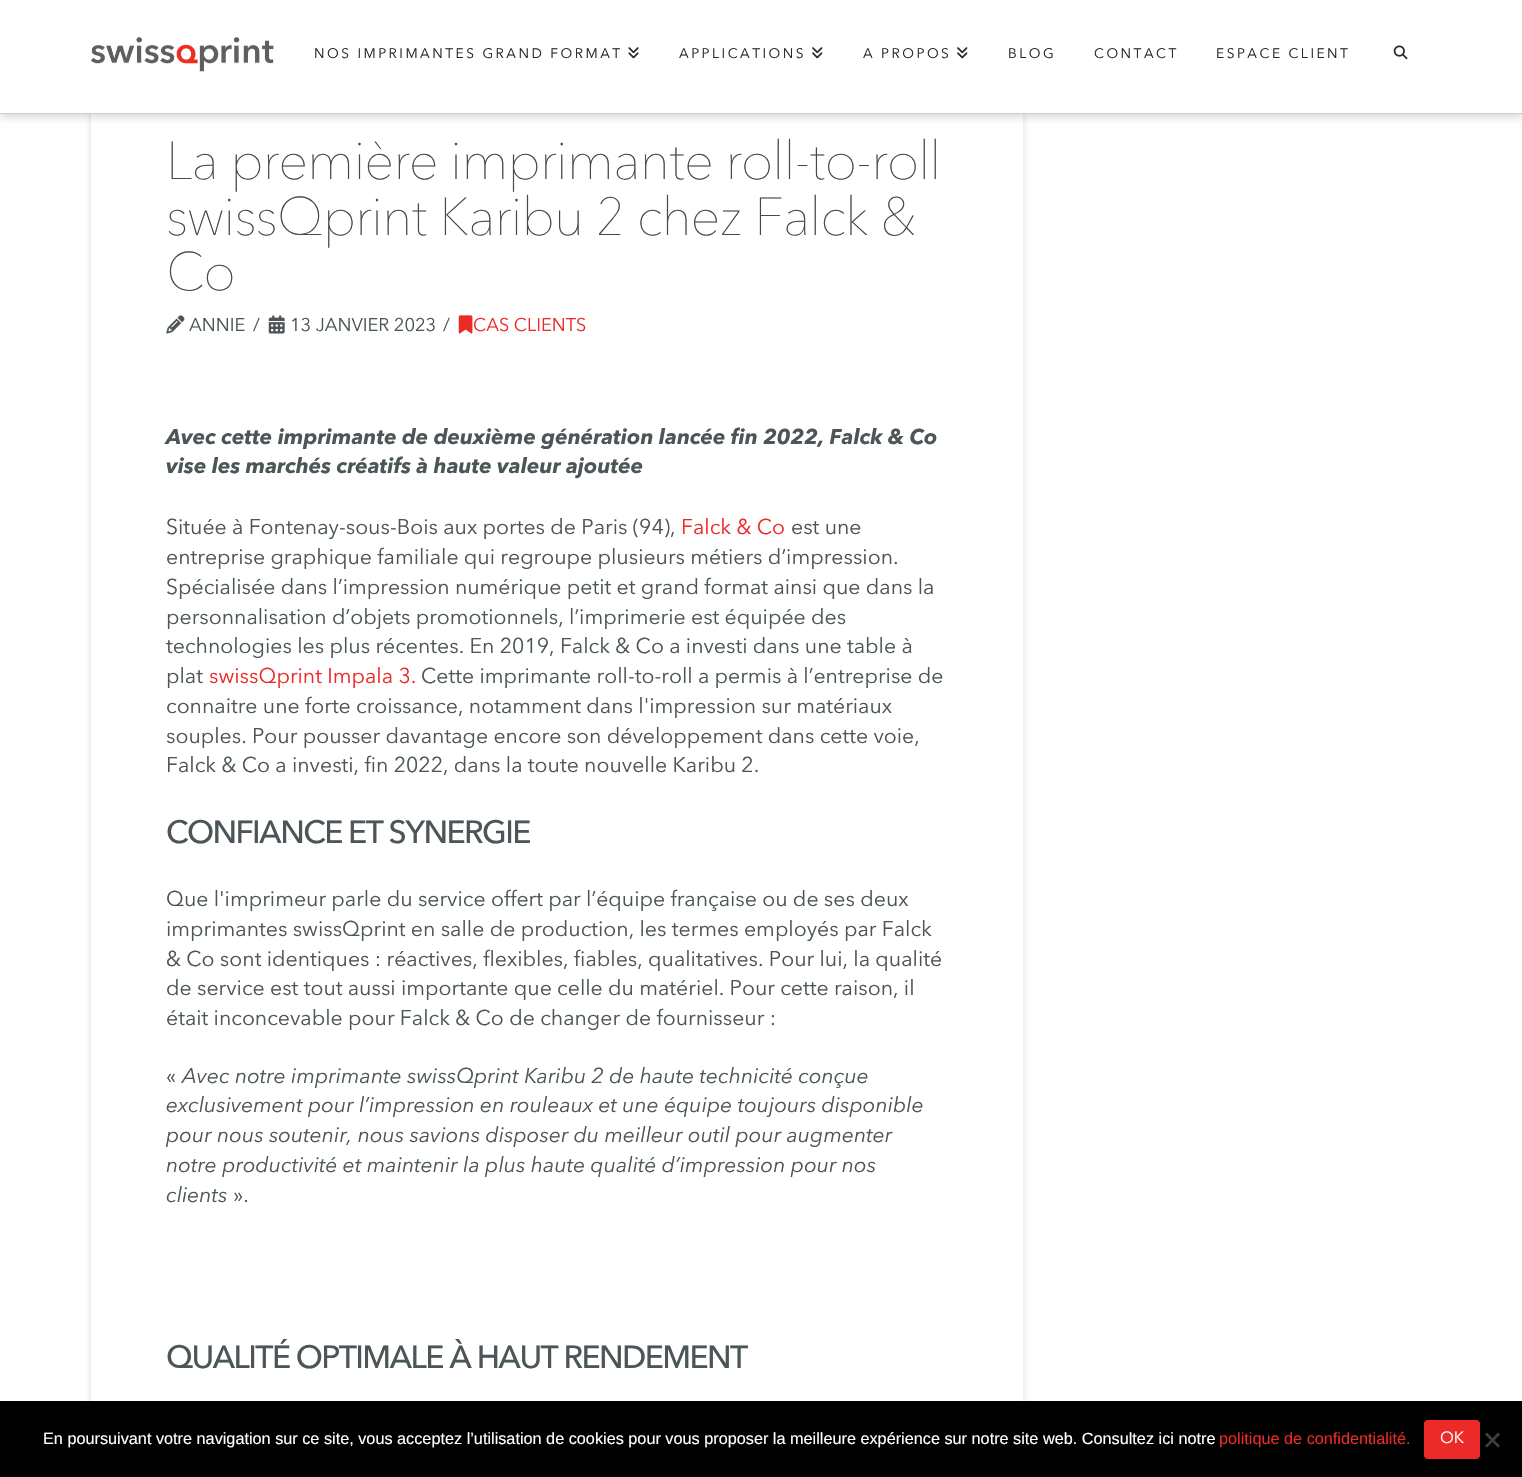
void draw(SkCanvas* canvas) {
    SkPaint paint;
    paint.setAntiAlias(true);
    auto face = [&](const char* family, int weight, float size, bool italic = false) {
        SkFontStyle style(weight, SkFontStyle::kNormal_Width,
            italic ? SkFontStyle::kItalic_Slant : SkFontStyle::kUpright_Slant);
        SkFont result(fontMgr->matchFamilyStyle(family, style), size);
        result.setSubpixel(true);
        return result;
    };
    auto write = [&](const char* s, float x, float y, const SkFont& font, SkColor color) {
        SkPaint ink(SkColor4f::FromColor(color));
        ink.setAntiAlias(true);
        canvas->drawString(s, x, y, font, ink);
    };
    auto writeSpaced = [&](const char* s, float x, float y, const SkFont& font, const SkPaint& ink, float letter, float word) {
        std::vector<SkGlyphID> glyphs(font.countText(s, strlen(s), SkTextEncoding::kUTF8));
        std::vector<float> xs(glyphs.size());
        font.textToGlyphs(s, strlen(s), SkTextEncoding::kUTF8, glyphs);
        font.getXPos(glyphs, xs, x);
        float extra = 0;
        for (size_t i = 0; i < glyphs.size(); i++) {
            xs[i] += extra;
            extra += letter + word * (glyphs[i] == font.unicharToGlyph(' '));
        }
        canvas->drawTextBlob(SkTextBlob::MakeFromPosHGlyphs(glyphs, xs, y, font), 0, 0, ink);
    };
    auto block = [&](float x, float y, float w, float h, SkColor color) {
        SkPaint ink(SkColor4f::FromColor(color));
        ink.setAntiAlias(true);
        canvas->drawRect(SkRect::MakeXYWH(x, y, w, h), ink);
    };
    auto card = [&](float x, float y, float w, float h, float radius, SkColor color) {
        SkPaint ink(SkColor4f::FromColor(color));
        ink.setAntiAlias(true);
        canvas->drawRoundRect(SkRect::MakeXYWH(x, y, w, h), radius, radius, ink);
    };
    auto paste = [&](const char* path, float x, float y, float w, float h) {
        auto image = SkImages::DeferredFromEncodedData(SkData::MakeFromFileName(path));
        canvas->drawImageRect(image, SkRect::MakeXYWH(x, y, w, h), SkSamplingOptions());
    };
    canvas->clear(SK_ColorWHITE);
    paint.setColor(SkColorSetARGB(33, 0, 0, 0));
    paint.setMaskFilter(SkMaskFilter::MakeBlur(kNormal_SkBlurStyle, 3.5f));
    canvas->drawRoundRect(SkRect::MakeXYWH(91, 64, 932, 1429), 5, 5, paint);
    paint.setMaskFilter(nullptr);
    block(91, 114, 932, 1287, SK_ColorWHITE);
    paint.setMaskFilter(SkMaskFilter::MakeBlur(kNormal_SkBlurStyle, 3.5f));
    canvas->drawRect(SkRect::MakeXYWH(0, 4, 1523, 114), paint);
    paint.setMaskFilter(nullptr);
    block(0, 0, 1522, 113, SK_ColorWHITE);
    block(0, 113, 1522, 1, SkColorSetRGB(204, 204, 204));
    paste("pic1.png", 91, 37, 183, 35);
    auto kFont1 = face("Avenir Next", 400, 13.75f);
    paint.setColor(SkColorSetRGB(39, 39, 39));
    writeSpaced("NOS IMPRIMANTES GRAND FORMAT", 314, 58, kFont1, paint, 2.5f, 0);
    paste("pic2.png", 628, 47, 11, 12);
    writeSpaced("APPLICATIONS", 679, 58, kFont1, paint, 2.5f, 0);
    paste("pic3.png", 812, 47, 11, 12);
    writeSpaced("A PROPOS", 863, 58, kFont1, paint, 2.5f, 0);
    paste("pic3.png", 957, 47, 11, 12);
    writeSpaced("BLOG", 1008, 58, kFont1, paint, 2.5f, 0);
    writeSpaced("CONTACT", 1094, 58, kFont1, paint, 2.5f, 0);
    writeSpaced("ESPACE CLIENT", 1216, 58, kFont1, paint, 2.5f, 0);
    paste("pic4.png", 1393, 45, 15, 15);
    auto kFont2 = face("Avenir Next", 200, 53.1f);
    paint.setColor(SkColorSetRGB(69, 73, 73));
    writeSpaced("La première imprimante roll-to-roll", 166, 179, kFont2, paint, -0.9f, 0);
    writeSpaced("swissQprint Karibu 2 chez Falck &", 166, 235, kFont2, paint, -0.9f, 0);
    writeSpaced("Co", 166, 290, kFont2, paint, -0.9f, 0);
    paste("pic5.png", 166, 315, 19, 19);
    auto kFont3 = face("Avenir Next", 400, 18.25f);
    write("ANNIE", 189, 331, kFont3, SkColorSetRGB(76, 86, 88));
    write("/", 253, 331, kFont3, SkColorSetRGB(76, 86, 88));
    paste("pic6.png", 268, 315, 17, 19);
    write("13 JANVIER 2023", 290, 331, kFont3, SkColorSetRGB(76, 86, 88));
    write("/", 443, 331, kFont3, SkColorSetRGB(76, 86, 88));
    paste("pic7.png", 458, 315, 15, 19);
    write("CAS CLIENTS", 473, 331, kFont3, SkColorSetRGB(236, 43, 40));
    auto kFont4 = face("Avenir Next", 700, 21.25f, true);
    write("Avec cette imprimante de deuxième génération lancée fin 2022, Falck & Co", 166, 444, kFont4, SkColorSetRGB(76, 86, 88));
    write("vise les marchés créatifs à haute valeur ajoutée", 166, 473, kFont4, SkColorSetRGB(76, 86, 88));
    auto kFont5 = face("Avenir Next", 400, 21.25f);
    write("Située à Fontenay-sous-Bois aux portes de Paris (94),", 166, 534, kFont5, SkColorSetRGB(76, 86, 88));
    write("Falck & Co", 681, 534, kFont5, SkColorSetRGB(236, 43, 40));
    write("est une", 791, 534, kFont5, SkColorSetRGB(76, 86, 88));
    write("entreprise graphique familiale qui regroupe plusieurs métiers d’impression.", 166, 564, kFont5, SkColorSetRGB(76, 86, 88));
    write("Spécialisée dans l’impression numérique petit et grand format ainsi que dans la", 166, 594, kFont5, SkColorSetRGB(76, 86, 88));
    write("personnalisation d’objets promotionnels, l’imprimerie est équipée des", 166, 624, kFont5, SkColorSetRGB(76, 86, 88));
    write("technologies les plus récentes. En 2019, Falck & Co a investi dans une table à", 166, 653, kFont5, SkColorSetRGB(76, 86, 88));
    write("plat", 166, 683, kFont5, SkColorSetRGB(76, 86, 88));
    write("swissQprint Impala 3.", 209, 683, kFont5, SkColorSetRGB(236, 43, 40));
    write("Cette imprimante roll-to-roll a permis à l’entreprise de", 421, 683, kFont5, SkColorSetRGB(76, 86, 88));
    write("connaitre une forte croissance, notamment dans l'impression sur matériaux", 166, 713, kFont5, SkColorSetRGB(76, 86, 88));
    write("souples. Pour pousser davantage encore son développement dans cette voie,", 166, 743, kFont5, SkColorSetRGB(76, 86, 88));
    write("Falck & Co a investi, fin 2022, dans la toute nouvelle Karibu 2.", 166, 772, kFont5, SkColorSetRGB(76, 86, 88));
    auto kFont6 = face("Avenir Next", 500, 31.9f);
    paint.setColor(SkColorSetRGB(76, 86, 88));
    writeSpaced("CONFIANCE ET SYNERGIE", 166, 843, kFont6, paint, -1.6f, 0);
    write("Que l'imprimeur parle du service offert par l’équipe française ou de ses deux", 166, 906, kFont5, SkColorSetRGB(76, 86, 88));
    write("imprimantes swissQprint en salle de production, les termes employés par Falck", 166, 936, kFont5, SkColorSetRGB(76, 86, 88));
    write("& Co sont identiques : réactives, flexibles, fiables, qualitatives. Pour lui, la qualité", 166, 966, kFont5, SkColorSetRGB(76, 86, 88));
    write("de service est tout aussi importante que celle du matériel. Pour cette raison, il", 166, 995, kFont5, SkColorSetRGB(76, 86, 88));
    write("était inconcevable pour Falck & Co de changer de fournisseur :", 166, 1025, kFont5, SkColorSetRGB(76, 86, 88));
    write("«", 166, 1083, kFont5, SkColorSetRGB(76, 86, 88));
    auto kFont7 = face("Avenir Next", 400, 21.25f, true);
    write("Avec notre imprimante swissQprint Karibu 2 de haute technicité conçue", 182, 1083, kFont7, SkColorSetRGB(76, 86, 88));
    write("exclusivement pour l’impression en rouleaux et une équipe toujours disponible", 166, 1112, kFont7, SkColorSetRGB(76, 86, 88));
    write("pour nous soutenir, nous savions disposer du meilleur outil pour augmenter", 166, 1142, kFont7, SkColorSetRGB(76, 86, 88));
    write("notre productivité et maintenir la plus haute qualité d’impression pour nos", 166, 1172, kFont7, SkColorSetRGB(76, 86, 88));
    write("clients", 166, 1202, kFont7, SkColorSetRGB(76, 86, 88));
    write("».", 233, 1202, kFont5, SkColorSetRGB(76, 86, 88));
    writeSpaced("QUALITÉ OPTIMALE À HAUT RENDEMENT", 166, 1368, kFont6, paint, -1.6f, 0);
    block(0, 1401, 1522, 76, SK_ColorBLACK);
    auto kFont8 = face("Liberation Sans", 400, 16.25f);
    write("En poursuivant votre navigation sur ce site, vous acceptez l’utilisation de cookies pour vous proposer la meilleure expérience sur notre site web. Consultez ici notre", 43, 1444, kFont8, SK_ColorWHITE);
    write("politique de confidentialité.", 1219, 1444, kFont8, SkColorSetRGB(236, 43, 40));
    card(1424, 1420, 56, 39, 4, SkColorSetRGB(236, 43, 40));
    auto kFont9 = face("Avenir Next", 400, 16.25f);
    write("OK", 1440, 1443, kFont9, SK_ColorWHITE);
    paint.setColor(SkColorSetRGB(64, 64, 64));
    canvas->drawPath(SkPathBuilder().moveTo(1498, 1432.5f).lineTo(1500, 1434.5f).lineTo(1487, 1447.5f).lineTo(1485, 1446).close().detach(), paint);
    canvas->drawPath(SkPathBuilder().moveTo(1485, 1434.5f).lineTo(1487, 1432.5f).lineTo(1500, 1446).lineTo(1498, 1447.5f).close().detach(), paint);
}
